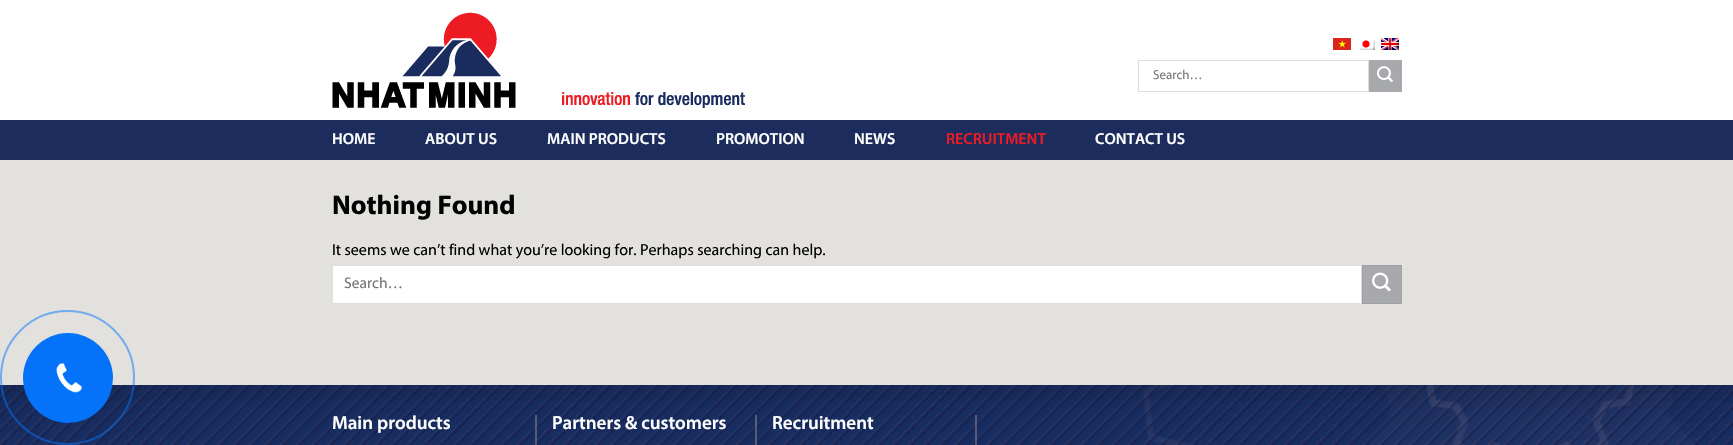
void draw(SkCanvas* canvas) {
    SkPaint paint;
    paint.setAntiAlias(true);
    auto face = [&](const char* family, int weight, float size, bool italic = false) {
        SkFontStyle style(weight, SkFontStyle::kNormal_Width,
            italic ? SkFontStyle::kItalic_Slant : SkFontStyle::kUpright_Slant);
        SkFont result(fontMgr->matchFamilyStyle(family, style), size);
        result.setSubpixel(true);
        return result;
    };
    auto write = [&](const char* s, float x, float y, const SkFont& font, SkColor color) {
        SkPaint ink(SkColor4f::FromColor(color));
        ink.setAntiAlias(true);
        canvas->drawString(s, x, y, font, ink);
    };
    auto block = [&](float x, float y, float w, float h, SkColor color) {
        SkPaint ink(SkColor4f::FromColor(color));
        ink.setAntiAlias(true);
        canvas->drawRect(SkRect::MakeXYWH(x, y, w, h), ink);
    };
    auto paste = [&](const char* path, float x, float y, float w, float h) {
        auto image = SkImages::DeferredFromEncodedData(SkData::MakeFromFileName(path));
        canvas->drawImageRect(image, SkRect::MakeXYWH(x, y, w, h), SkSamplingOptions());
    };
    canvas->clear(SK_ColorWHITE);
    paste("pic1.png", 332, 12, 184, 96);
    paste("pic2.png", 1333, 38, 18, 12);
    paste("pic3.png", 1359, 40, 16, 10);
    paste("pic4.png", 1381, 38, 18, 12);
    paint.setStyle(SkPaint::kStroke_Style);
    paint.setStrokeWidth(1);
    paint.setColor(SkColorSetRGB(221, 221, 221));
    canvas->drawRect(SkRect::MakeXYWH(1138.5f, 60.5f, 230, 31), paint);
    auto kFont1 = face("Myriad", 400, 13);
    write("Search…", 1153, 79, kFont1, SkColorSetRGB(117, 117, 117));
    block(1369, 60, 33, 32, SkColorSetRGB(167, 169, 172));
    paste("pic5.png", 1377, 66, 16, 16);
    paste("pic6.png", 562, 92, 183, 16);
    block(0, 120, 1733, 40, SkColorSetRGB(27, 44, 93));
    auto kFont2 = face("Myriad", 600, 16);
    write("HOME", 332, 144, kFont2, SK_ColorWHITE);
    write("ABOUT US", 425, 144, kFont2, SK_ColorWHITE);
    write("MAIN PRODUCTS", 547, 144, kFont2, SK_ColorWHITE);
    write("PROMOTION", 716, 144, kFont2, SK_ColorWHITE);
    write("NEWS", 854, 144, kFont2, SK_ColorWHITE);
    write("RECRUITMENT", 946, 144, kFont2, SkColorSetRGB(237, 28, 36));
    write("CONTACT US", 1095, 144, kFont2, SK_ColorWHITE);
    block(0, 160, 1733, 225, SkColorSetRGB(227, 225, 221));
    auto kFont3 = face("Myriad", 700, 27.25f);
    write("Nothing Found", 332, 214, kFont3, SK_ColorBLACK);
    auto kFont4 = face("Myriad", 400, 16);
    write("It seems we can’t find what you’re looking for. Perhaps searching can help.", 332, 255, kFont4, SK_ColorBLACK);
    paint.setStyle(SkPaint::kFill_Style);
    paint.setColor(SK_ColorWHITE);
    canvas->drawRect(SkRect::MakeXYWH(332.5f, 265.5f, 1029, 38), paint);
    paint.setStyle(SkPaint::kStroke_Style);
    paint.setColor(SkColorSetRGB(221, 221, 221));
    canvas->drawRect(SkRect::MakeXYWH(332.5f, 265.5f, 1029, 38), paint);
    auto kFont5 = face("Myriad", 400, 15.5f);
    write("Search…", 344, 288, kFont5, SkColorSetRGB(117, 117, 117));
    paint.setStyle(SkPaint::kFill_Style);
    paint.setColor(SkColorSetRGB(167, 169, 172));
    canvas->drawRect(SkRect::MakeXYWH(1362.5f, 265.5f, 39, 38), paint);
    paint.setStyle(SkPaint::kStroke_Style);
    paint.setColor(SkColorSetRGB(159, 161, 163));
    canvas->drawRect(SkRect::MakeXYWH(1362.5f, 265.5f, 39, 38), paint);
    paste("pic7.png", 1372, 272, 19, 20);
    paste("pic9.png", 0, 385, 1733, 60);
    paint.setStrokeWidth(2);
    paint.setColor(SkColorSetARGB(128, 4, 115, 250));
    canvas->drawCircle(67.5f, 377.5f, 66.5f, paint);
    paint.setStyle(SkPaint::kFill_Style);
    paint.setColor(SkColorSetRGB(4, 115, 250));
    canvas->drawCircle(68, 378, 45, paint);
    paste("pic8.png", 56, 363, 26, 30);
    block(535, 415, 2, 30, SkColorSetARGB(128, 142, 142, 142));
    auto kFont6 = face("Myriad", 600, 19);
    write("Main products", 332, 429, kFont6, SK_ColorWHITE);
    block(755, 415, 2, 30, SkColorSetARGB(128, 142, 142, 142));
    write("Partners & customers", 552, 429, kFont6, SK_ColorWHITE);
    block(975, 415, 2, 30, SkColorSetARGB(128, 142, 142, 142));
    write("Recruitment", 772, 429, kFont6, SK_ColorWHITE);
}
